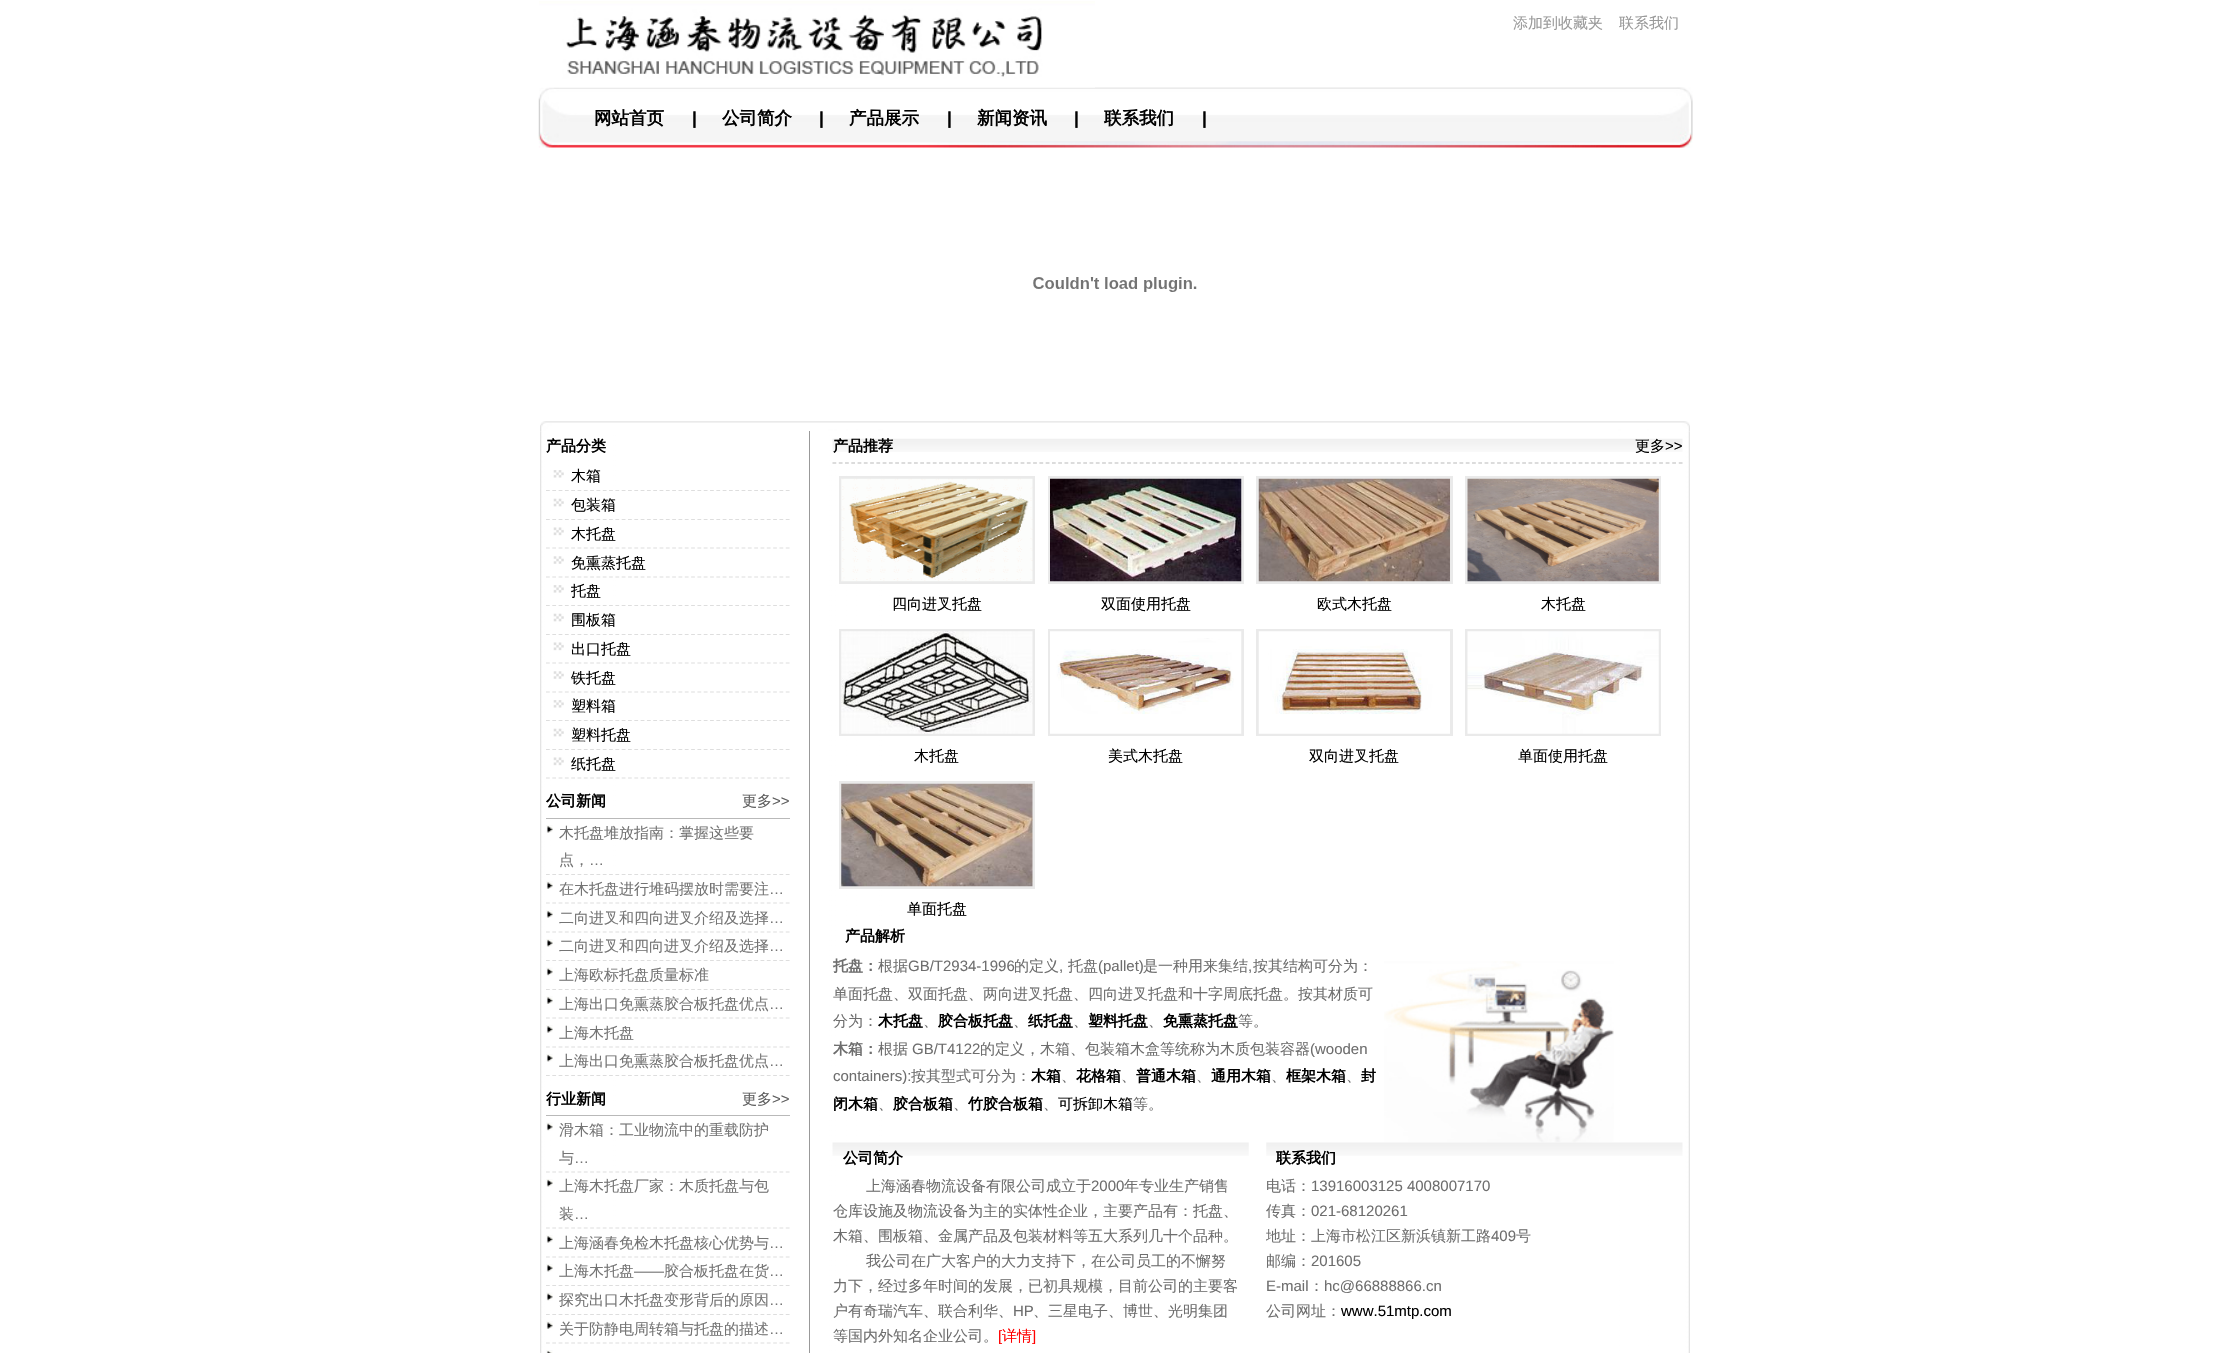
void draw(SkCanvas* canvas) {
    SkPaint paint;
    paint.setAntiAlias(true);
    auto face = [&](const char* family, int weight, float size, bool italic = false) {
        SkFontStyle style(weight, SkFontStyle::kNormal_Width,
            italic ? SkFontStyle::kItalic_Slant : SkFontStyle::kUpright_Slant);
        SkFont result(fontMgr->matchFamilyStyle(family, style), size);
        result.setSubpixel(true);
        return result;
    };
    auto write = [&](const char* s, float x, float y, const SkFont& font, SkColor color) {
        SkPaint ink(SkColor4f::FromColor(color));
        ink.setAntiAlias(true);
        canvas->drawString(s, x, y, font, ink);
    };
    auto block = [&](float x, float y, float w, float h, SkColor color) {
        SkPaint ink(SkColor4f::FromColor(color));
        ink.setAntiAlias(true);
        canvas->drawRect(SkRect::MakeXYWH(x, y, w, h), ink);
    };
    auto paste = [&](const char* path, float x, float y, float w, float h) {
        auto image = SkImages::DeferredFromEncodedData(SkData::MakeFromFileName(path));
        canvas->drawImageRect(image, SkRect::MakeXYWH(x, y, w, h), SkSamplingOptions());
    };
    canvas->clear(SK_ColorWHITE);
    paste("pic2.png", 538, 87, 1155, 61);
    paste("pic1.png", 539, 1, 556, 87);
    auto kFont1 = face("WenQuanYi Zen Hei", 500, 15);
    write("添加到收藏夹", 1513, 28, kFont1, SkColorSetRGB(153, 153, 153));
    write("联系我们", 1619, 28, kFont1, SkColorSetRGB(153, 153, 153));
    auto kFont2 = face("WenQuanYi Zen Hei", 700, 17.5f);
    write("网站首页", 594, 124, kFont2, SK_ColorBLACK);
    auto kFont3 = face("Liberation Sans", 700, 17.5f);
    write("|", 692, 124, kFont3, SK_ColorBLACK);
    write("公司简介", 722, 124, kFont2, SK_ColorBLACK);
    write("|", 819, 124, kFont3, SK_ColorBLACK);
    write("产品展示", 849, 124, kFont2, SK_ColorBLACK);
    write("|", 947, 124, kFont3, SK_ColorBLACK);
    write("新闻资讯", 977, 124, kFont2, SK_ColorBLACK);
    write("|", 1074, 124, kFont3, SK_ColorBLACK);
    write("联系我们", 1104, 124, kFont2, SK_ColorBLACK);
    write("|", 1202, 124, kFont3, SK_ColorBLACK);
    paste("pic3.png", 1033, 277, 164, 15);
    paste("pic4.png", 540, 421, 1150, 11);
    paste("pic5.png", 540, 431, 1150, 922);
    block(809, 431, 1, 922, SkColorSetRGB(153, 153, 153));
    auto kFont4 = face("WenQuanYi Zen Hei", 700, 15);
    write("产品分类", 546, 451, kFont4, SK_ColorBLACK);
    paste("pic6.png", 553, 470, 11, 8);
    paint.setStyle(SkPaint::kStroke_Style);
    paint.setStrokeWidth(1.2f);
    paint.setColor(SkColorSetRGB(222, 222, 222));
    paint.setPathEffect(SkDashPathEffect::Make({{3.75f, 2.56f}}, 0));
    canvas->drawPath(SkPathBuilder().moveTo(546, 490.5f).lineTo(790, 490.5f).detach(), paint);
    paint.setPathEffect(nullptr);
    write("木箱", 571, 481, kFont1, SK_ColorBLACK);
    paste("pic7.png", 553, 498, 11, 9);
    paint.setPathEffect(SkDashPathEffect::Make({{3.75f, 2.56f}}, 0));
    canvas->drawPath(SkPathBuilder().moveTo(546, 519.5f).lineTo(790, 519.5f).detach(), paint);
    paint.setPathEffect(nullptr);
    write("包装箱", 571, 510, kFont1, SK_ColorBLACK);
    paste("pic8.png", 553, 527, 11, 9);
    paint.setPathEffect(SkDashPathEffect::Make({{3.75f, 2.56f}}, 0));
    canvas->drawPath(SkPathBuilder().moveTo(546, 548).lineTo(790, 548).detach(), paint);
    paint.setPathEffect(nullptr);
    write("木托盘", 571, 539, kFont1, SK_ColorBLACK);
    paste("pic9.png", 553, 556, 11, 8);
    paint.setPathEffect(SkDashPathEffect::Make({{3.75f, 2.56f}}, 0));
    canvas->drawPath(SkPathBuilder().moveTo(546, 577).lineTo(790, 577).detach(), paint);
    paint.setPathEffect(nullptr);
    write("免熏蒸托盘", 571, 568, kFont1, SK_ColorBLACK);
    paste("pic10.png", 553, 585, 11, 8);
    paint.setPathEffect(SkDashPathEffect::Make({{3.75f, 2.56f}}, 0));
    canvas->drawPath(SkPathBuilder().moveTo(546, 605.5f).lineTo(790, 605.5f).detach(), paint);
    paint.setPathEffect(nullptr);
    write("托盘", 571, 596, kFont1, SK_ColorBLACK);
    paste("pic7.png", 553, 613, 11, 9);
    paint.setPathEffect(SkDashPathEffect::Make({{3.75f, 2.56f}}, 0));
    canvas->drawPath(SkPathBuilder().moveTo(546, 634.5f).lineTo(790, 634.5f).detach(), paint);
    paint.setPathEffect(nullptr);
    write("围板箱", 571, 625, kFont1, SK_ColorBLACK);
    paste("pic8.png", 553, 642, 11, 9);
    paint.setPathEffect(SkDashPathEffect::Make({{3.75f, 2.56f}}, 0));
    canvas->drawPath(SkPathBuilder().moveTo(546, 663).lineTo(790, 663).detach(), paint);
    paint.setPathEffect(nullptr);
    write("出口托盘", 571, 654, kFont1, SK_ColorBLACK);
    paste("pic9.png", 553, 671, 11, 8);
    paint.setPathEffect(SkDashPathEffect::Make({{3.75f, 2.56f}}, 0));
    canvas->drawPath(SkPathBuilder().moveTo(546, 692).lineTo(790, 692).detach(), paint);
    paint.setPathEffect(nullptr);
    write("铁托盘", 571, 683, kFont1, SK_ColorBLACK);
    paste("pic6.png", 553, 700, 11, 8);
    paint.setPathEffect(SkDashPathEffect::Make({{3.75f, 2.56f}}, 0));
    canvas->drawPath(SkPathBuilder().moveTo(546, 720.5f).lineTo(790, 720.5f).detach(), paint);
    paint.setPathEffect(nullptr);
    write("塑料箱", 571, 711, kFont1, SK_ColorBLACK);
    paste("pic7.png", 553, 728, 11, 9);
    paint.setPathEffect(SkDashPathEffect::Make({{3.75f, 2.56f}}, 0));
    canvas->drawPath(SkPathBuilder().moveTo(546, 749.5f).lineTo(790, 749.5f).detach(), paint);
    paint.setPathEffect(nullptr);
    write("塑料托盘", 571, 740, kFont1, SK_ColorBLACK);
    paste("pic8.png", 553, 757, 11, 9);
    paint.setPathEffect(SkDashPathEffect::Make({{3.75f, 2.56f}}, 0));
    canvas->drawPath(SkPathBuilder().moveTo(546, 778).lineTo(790, 778).detach(), paint);
    paint.setPathEffect(nullptr);
    write("纸托盘", 571, 769, kFont1, SK_ColorBLACK);
    block(546, 818, 244, 1, SkColorSetRGB(185, 185, 185));
    write("公司新闻", 546, 806, kFont4, SK_ColorBLACK);
    write("更多", 742, 806, kFont1, SkColorSetRGB(95, 95, 95));
    auto kFont5 = face("Liberation Sans", 400, 15);
    write(">>", 772, 806, kFont5, SkColorSetRGB(95, 95, 95));
    paste("pic11.png", 546, 825, 7, 8);
    paint.setPathEffect(SkDashPathEffect::Make({{3.75f, 2.56f}}, 0));
    canvas->drawPath(SkPathBuilder().moveTo(546, 874.5f).lineTo(790, 874.5f).detach(), paint);
    paint.setPathEffect(nullptr);
    write("木托盘堆放指南：掌握这些要", 559, 838, kFont1, SkColorSetRGB(116, 116, 116));
    write("点，", 559, 865, kFont1, SkColorSetRGB(116, 116, 116));
    write("…", 589, 865, kFont5, SkColorSetRGB(116, 116, 116));
    paste("pic12.png", 546, 881, 7, 8);
    paint.setPathEffect(SkDashPathEffect::Make({{3.75f, 2.56f}}, 0));
    canvas->drawPath(SkPathBuilder().moveTo(546, 903).lineTo(790, 903).detach(), paint);
    paint.setPathEffect(nullptr);
    write("在木托盘进行堆码摆放时需要注", 559, 894, kFont1, SkColorSetRGB(116, 116, 116));
    write("…", 769, 894, kFont5, SkColorSetRGB(116, 116, 116));
    paste("pic11.png", 546, 910, 7, 8);
    paint.setPathEffect(SkDashPathEffect::Make({{3.75f, 2.56f}}, 0));
    canvas->drawPath(SkPathBuilder().moveTo(546, 932).lineTo(790, 932).detach(), paint);
    paint.setPathEffect(nullptr);
    write("二向进叉和四向进叉介绍及选择", 559, 923, kFont1, SkColorSetRGB(116, 116, 116));
    write("…", 769, 923, kFont5, SkColorSetRGB(116, 116, 116));
    paste("pic13.png", 546, 939, 7, 8);
    paint.setPathEffect(SkDashPathEffect::Make({{3.75f, 2.56f}}, 0));
    canvas->drawPath(SkPathBuilder().moveTo(546, 960.5f).lineTo(790, 960.5f).detach(), paint);
    paint.setPathEffect(nullptr);
    write("二向进叉和四向进叉介绍及选择", 559, 951, kFont1, SkColorSetRGB(116, 116, 116));
    write("…", 769, 951, kFont5, SkColorSetRGB(116, 116, 116));
    paste("pic14.png", 546, 967, 7, 9);
    paint.setPathEffect(SkDashPathEffect::Make({{3.75f, 2.56f}}, 0));
    canvas->drawPath(SkPathBuilder().moveTo(546, 989.5f).lineTo(790, 989.5f).detach(), paint);
    paint.setPathEffect(nullptr);
    write("上海欧标托盘质量标准", 559, 980, kFont1, SkColorSetRGB(116, 116, 116));
    paste("pic12.png", 546, 996, 7, 8);
    paint.setPathEffect(SkDashPathEffect::Make({{3.75f, 2.56f}}, 0));
    canvas->drawPath(SkPathBuilder().moveTo(546, 1018).lineTo(790, 1018).detach(), paint);
    paint.setPathEffect(nullptr);
    write("上海出口免熏蒸胶合板托盘优点", 559, 1009, kFont1, SkColorSetRGB(116, 116, 116));
    write("…", 769, 1009, kFont5, SkColorSetRGB(116, 116, 116));
    paste("pic15.png", 546, 1025, 7, 8);
    paint.setPathEffect(SkDashPathEffect::Make({{3.75f, 2.56f}}, 0));
    canvas->drawPath(SkPathBuilder().moveTo(546, 1047).lineTo(790, 1047).detach(), paint);
    paint.setPathEffect(nullptr);
    write("上海木托盘", 559, 1038, kFont1, SkColorSetRGB(116, 116, 116));
    paste("pic13.png", 546, 1054, 7, 8);
    paint.setPathEffect(SkDashPathEffect::Make({{3.75f, 2.56f}}, 0));
    canvas->drawPath(SkPathBuilder().moveTo(546, 1075.5f).lineTo(790, 1075.5f).detach(), paint);
    paint.setPathEffect(nullptr);
    write("上海出口免熏蒸胶合板托盘优点", 559, 1066, kFont1, SkColorSetRGB(116, 116, 116));
    write("…", 769, 1066, kFont5, SkColorSetRGB(116, 116, 116));
    block(546, 1115, 244, 1, SkColorSetRGB(185, 185, 185));
    write("行业新闻", 546, 1104, kFont4, SK_ColorBLACK);
    write("更多", 742, 1104, kFont1, SkColorSetRGB(95, 95, 95));
    write(">>", 772, 1104, kFont5, SkColorSetRGB(95, 95, 95));
    paste("pic14.png", 546, 1122, 7, 9);
    paint.setPathEffect(SkDashPathEffect::Make({{3.75f, 2.56f}}, 0));
    canvas->drawPath(SkPathBuilder().moveTo(546, 1172).lineTo(790, 1172).detach(), paint);
    paint.setPathEffect(nullptr);
    write("滑木箱：工业物流中的重载防护", 559, 1135, kFont1, SkColorSetRGB(116, 116, 116));
    write("与", 559, 1163, kFont1, SkColorSetRGB(116, 116, 116));
    write("…", 574, 1163, kFont5, SkColorSetRGB(116, 116, 116));
    paste("pic13.png", 546, 1179, 7, 8);
    paint.setPathEffect(SkDashPathEffect::Make({{3.75f, 2.56f}}, 0));
    canvas->drawPath(SkPathBuilder().moveTo(546, 1228).lineTo(790, 1228).detach(), paint);
    paint.setPathEffect(nullptr);
    write("上海木托盘厂家：木质托盘与包", 559, 1191, kFont1, SkColorSetRGB(116, 116, 116));
    write("装", 559, 1219, kFont1, SkColorSetRGB(116, 116, 116));
    write("…", 574, 1219, kFont5, SkColorSetRGB(116, 116, 116));
    paste("pic11.png", 546, 1235, 7, 8);
    paint.setPathEffect(SkDashPathEffect::Make({{3.75f, 2.56f}}, 0));
    canvas->drawPath(SkPathBuilder().moveTo(546, 1257).lineTo(790, 1257).detach(), paint);
    paint.setPathEffect(nullptr);
    write("上海涵春免检木托盘核心优势与", 559, 1248, kFont1, SkColorSetRGB(116, 116, 116));
    write("…", 769, 1248, kFont5, SkColorSetRGB(116, 116, 116));
    paste("pic13.png", 546, 1264, 7, 8);
    paint.setPathEffect(SkDashPathEffect::Make({{3.75f, 2.56f}}, 0));
    canvas->drawPath(SkPathBuilder().moveTo(546, 1285.5f).lineTo(790, 1285.5f).detach(), paint);
    paint.setPathEffect(nullptr);
    write("上海木托盘", 559, 1276, kFont1, SkColorSetRGB(116, 116, 116));
    write("——", 634, 1276, kFont5, SkColorSetRGB(116, 116, 116));
    write("胶合板托盘在货", 664, 1276, kFont1, SkColorSetRGB(116, 116, 116));
    write("…", 769, 1276, kFont5, SkColorSetRGB(116, 116, 116));
    paste("pic14.png", 546, 1292, 7, 9);
    paint.setPathEffect(SkDashPathEffect::Make({{3.75f, 2.56f}}, 0));
    canvas->drawPath(SkPathBuilder().moveTo(546, 1314.5f).lineTo(790, 1314.5f).detach(), paint);
    paint.setPathEffect(nullptr);
    write("探究出口木托盘变形背后的原因", 559, 1305, kFont1, SkColorSetRGB(116, 116, 116));
    write("…", 769, 1305, kFont5, SkColorSetRGB(116, 116, 116));
    paste("pic12.png", 546, 1321, 7, 8);
    paint.setPathEffect(SkDashPathEffect::Make({{3.75f, 2.56f}}, 0));
    canvas->drawPath(SkPathBuilder().moveTo(546, 1343).lineTo(790, 1343).detach(), paint);
    paint.setPathEffect(nullptr);
    write("关于防静电周转箱与托盘的描述", 559, 1334, kFont1, SkColorSetRGB(116, 116, 116));
    write("…", 769, 1334, kFont5, SkColorSetRGB(116, 116, 116));
    paste("pic16.png", 546, 1350, 7, 3);
    paint.setColor(SkColorSetRGB(185, 185, 185));
    paint.setPathEffect(SkDashPathEffect::Make({{3.75f, 2.52f}}, 0));
    canvas->drawPath(SkPathBuilder().moveTo(832.5f, 463).lineTo(1620, 463).detach(), paint);
    paint.setPathEffect(nullptr);
    paste("pic26.png", 832, 438, 851, 14);
    write("产品推荐", 833, 451, kFont4, SK_ColorBLACK);
    paint.setPathEffect(SkDashPathEffect::Make({{3.75f, 2.78f}}, 0));
    canvas->drawPath(SkPathBuilder().moveTo(1620, 463).lineTo(1682.5f, 463).detach(), paint);
    paint.setPathEffect(nullptr);
    write("更多", 1635, 451, kFont1, SK_ColorBLACK);
    write(">>", 1665, 451, kFont5, SK_ColorBLACK);
    paint.setStrokeWidth(3);
    paint.setColor(SkColorSetRGB(234, 234, 234));
    canvas->drawRect(SkRect::MakeXYWH(840.5f, 477.5f, 193, 105), paint);
    paste("pic17.png", 841, 478, 192, 104);
    write("四向进叉托盘", 892, 609, kFont1, SK_ColorBLACK);
    canvas->drawRect(SkRect::MakeXYWH(1049.5f, 477.5f, 193, 105), paint);
    paste("pic18.png", 1050, 478, 192, 104);
    write("双面使用托盘", 1101, 609, kFont1, SK_ColorBLACK);
    canvas->drawRect(SkRect::MakeXYWH(1257.5f, 477.5f, 194, 105), paint);
    paste("pic19.png", 1258, 478, 192, 104);
    write("欧式木托盘", 1317, 609, kFont1, SK_ColorBLACK);
    canvas->drawRect(SkRect::MakeXYWH(1466.5f, 477.5f, 193, 105), paint);
    paste("pic20.png", 1467, 478, 192, 104);
    write("木托盘", 1541, 609, kFont1, SK_ColorBLACK);
    canvas->drawRect(SkRect::MakeXYWH(840.5f, 630.5f, 193, 104), paint);
    paste("pic21.png", 841, 631, 192, 103);
    write("木托盘", 914, 761, kFont1, SK_ColorBLACK);
    canvas->drawRect(SkRect::MakeXYWH(1049.5f, 630.5f, 193, 104), paint);
    paste("pic22.png", 1050, 631, 192, 103);
    write("美式木托盘", 1108, 761, kFont1, SK_ColorBLACK);
    canvas->drawRect(SkRect::MakeXYWH(1257.5f, 630.5f, 194, 104), paint);
    paste("pic23.png", 1258, 631, 192, 103);
    write("双向进叉托盘", 1309, 761, kFont1, SK_ColorBLACK);
    canvas->drawRect(SkRect::MakeXYWH(1466.5f, 630.5f, 193, 104), paint);
    paste("pic24.png", 1467, 631, 192, 103);
    write("单面使用托盘", 1518, 761, kFont1, SK_ColorBLACK);
    canvas->drawRect(SkRect::MakeXYWH(840.5f, 782.5f, 193, 105), paint);
    paste("pic25.png", 841, 783, 192, 104);
    write("单面托盘", 907, 914, kFont1, SK_ColorBLACK);
    write("产品解析", 845, 941, kFont4, SK_ColorBLACK);
    write("托盘：", 833, 971, kFont4, SkColorSetRGB(110, 110, 110));
    write("根据", 878, 971, kFont1, SkColorSetRGB(110, 110, 110));
    write("GB/T2934-1996", 908, 971, kFont5, SkColorSetRGB(110, 110, 110));
    write("的定义", 1014, 971, kFont1, SkColorSetRGB(110, 110, 110));
    write(",", 1059, 971, kFont5, SkColorSetRGB(110, 110, 110));
    write("托盘", 1068, 971, kFont1, SkColorSetRGB(110, 110, 110));
    write("(pallet)", 1098, 971, kFont5, SkColorSetRGB(110, 110, 110));
    write("是一种用来集结", 1143, 971, kFont1, SkColorSetRGB(110, 110, 110));
    write(",", 1248, 971, kFont5, SkColorSetRGB(110, 110, 110));
    write("按其结构可分为：", 1253, 971, kFont1, SkColorSetRGB(110, 110, 110));
    write("单面托盘、双面托盘、两向进叉托盘、四向进叉托盘和十字周底托盘。按其材质可", 833, 999, kFont1, SkColorSetRGB(110, 110, 110));
    write("分为：", 833, 1026, kFont1, SkColorSetRGB(110, 110, 110));
    write("木托盘", 878, 1026, kFont4, SK_ColorBLACK);
    write("、", 923, 1026, kFont1, SkColorSetRGB(110, 110, 110));
    write("胶合板托盘", 938, 1026, kFont4, SK_ColorBLACK);
    write("、", 1013, 1026, kFont1, SkColorSetRGB(110, 110, 110));
    write("纸托盘", 1028, 1026, kFont4, SK_ColorBLACK);
    write("、", 1073, 1026, kFont1, SkColorSetRGB(110, 110, 110));
    write("塑料托盘", 1088, 1026, kFont4, SK_ColorBLACK);
    write("、", 1148, 1026, kFont1, SkColorSetRGB(110, 110, 110));
    write("免熏蒸托盘", 1163, 1026, kFont4, SK_ColorBLACK);
    write("等。", 1238, 1026, kFont1, SkColorSetRGB(110, 110, 110));
    write("木箱：", 833, 1054, kFont4, SkColorSetRGB(110, 110, 110));
    write("根据", 878, 1054, kFont1, SkColorSetRGB(110, 110, 110));
    write("GB/T4122", 912, 1054, kFont5, SkColorSetRGB(110, 110, 110));
    write("的定义，木箱、包装箱木盒等统称为木质包装容器", 980, 1054, kFont1, SkColorSetRGB(110, 110, 110));
    write("(wooden", 1310, 1054, kFont5, SkColorSetRGB(110, 110, 110));
    write("containers):", 833, 1081, kFont5, SkColorSetRGB(110, 110, 110));
    write("按其型式可分为：", 911, 1081, kFont1, SkColorSetRGB(110, 110, 110));
    write("木箱", 1031, 1081, kFont4, SK_ColorBLACK);
    write("、", 1061, 1081, kFont1, SkColorSetRGB(110, 110, 110));
    write("花格箱", 1076, 1081, kFont4, SK_ColorBLACK);
    write("、", 1121, 1081, kFont1, SkColorSetRGB(110, 110, 110));
    write("普通木箱", 1136, 1081, kFont4, SK_ColorBLACK);
    write("、", 1196, 1081, kFont1, SkColorSetRGB(110, 110, 110));
    write("通用木箱", 1211, 1081, kFont4, SK_ColorBLACK);
    write("、", 1271, 1081, kFont1, SkColorSetRGB(110, 110, 110));
    write("框架木箱", 1286, 1081, kFont4, SK_ColorBLACK);
    write("、", 1346, 1081, kFont1, SkColorSetRGB(110, 110, 110));
    write("封", 1361, 1081, kFont4, SK_ColorBLACK);
    write("闭木箱", 833, 1109, kFont4, SK_ColorBLACK);
    write("、", 878, 1109, kFont1, SkColorSetRGB(110, 110, 110));
    write("胶合板箱", 893, 1109, kFont4, SK_ColorBLACK);
    write("、", 953, 1109, kFont1, SkColorSetRGB(110, 110, 110));
    write("竹胶合板箱", 968, 1109, kFont4, SK_ColorBLACK);
    write("、", 1043, 1109, kFont1, SkColorSetRGB(110, 110, 110));
    write("可拆卸木箱", 1058, 1109, kFont1, SK_ColorBLACK);
    write("等。", 1133, 1109, kFont1, SkColorSetRGB(110, 110, 110));
    paste("pic27.png", 1384, 961, 230, 182);
    paste("pic28.png", 832, 1142, 417, 14);
    write("公司简介", 843, 1163, kFont4, SK_ColorBLACK);
    write("上海涵春物流设备有限公司成立于", 866, 1191, kFont1, SkColorSetRGB(110, 110, 110));
    write("2000", 1091, 1191, kFont5, SkColorSetRGB(110, 110, 110));
    write("年专业生产销售", 1124, 1191, kFont1, SkColorSetRGB(110, 110, 110));
    write("仓库设施及物流设备为主的实体性企业，主要产品有：托盘、", 833, 1216, kFont1, SkColorSetRGB(110, 110, 110));
    write("木箱、围板箱、金属产品及包装材料等五大系列几十个品种。", 833, 1241, kFont1, SkColorSetRGB(110, 110, 110));
    write("我公司在广大客户的大力支持下，在公司员工的不懈努", 866, 1266, kFont1, SkColorSetRGB(110, 110, 110));
    write("力下，经过多年时间的发展，已初具规模，目前公司的主要客", 833, 1291, kFont1, SkColorSetRGB(110, 110, 110));
    write("户有奇瑞汽车、联合利华、", 833, 1316, kFont1, SkColorSetRGB(110, 110, 110));
    write("HP", 1013, 1316, kFont5, SkColorSetRGB(110, 110, 110));
    write("、三星电子、博世、光明集团", 1033, 1316, kFont1, SkColorSetRGB(110, 110, 110));
    write("等国内外知名企业公司。", 833, 1341, kFont1, SkColorSetRGB(110, 110, 110));
    write("[", 998, 1341, kFont5, SkColorSetRGB(255, 0, 0));
    write("详情", 1002, 1341, kFont1, SkColorSetRGB(255, 0, 0));
    write("]", 1032, 1341, kFont5, SkColorSetRGB(255, 0, 0));
    paste("pic29.png", 1266, 1142, 417, 14);
    write("联系我们", 1276, 1163, kFont4, SK_ColorBLACK);
    write("电话：", 1266, 1191, kFont1, SkColorSetRGB(110, 110, 110));
    write("13916003125 4008007170", 1311, 1191, kFont5, SkColorSetRGB(110, 110, 110));
    write("传真：", 1266, 1216, kFont1, SkColorSetRGB(110, 110, 110));
    write("021-68120261", 1311, 1216, kFont5, SkColorSetRGB(110, 110, 110));
    write("地址：上海市松江区新浜镇新工路", 1266, 1241, kFont1, SkColorSetRGB(110, 110, 110));
    write("409", 1491, 1241, kFont5, SkColorSetRGB(110, 110, 110));
    write("号", 1516, 1241, kFont1, SkColorSetRGB(110, 110, 110));
    write("邮编：", 1266, 1266, kFont1, SkColorSetRGB(110, 110, 110));
    write("201605", 1311, 1266, kFont5, SkColorSetRGB(110, 110, 110));
    write("E-mail", 1266, 1291, kFont5, SkColorSetRGB(110, 110, 110));
    write("：", 1309, 1291, kFont1, SkColorSetRGB(110, 110, 110));
    write("hc@66888866.cn", 1324, 1291, kFont5, SkColorSetRGB(110, 110, 110));
    write("公司网址：", 1266, 1316, kFont1, SkColorSetRGB(110, 110, 110));
    write("www.51mtp.com", 1341, 1316, kFont5, SK_ColorBLACK);
}
